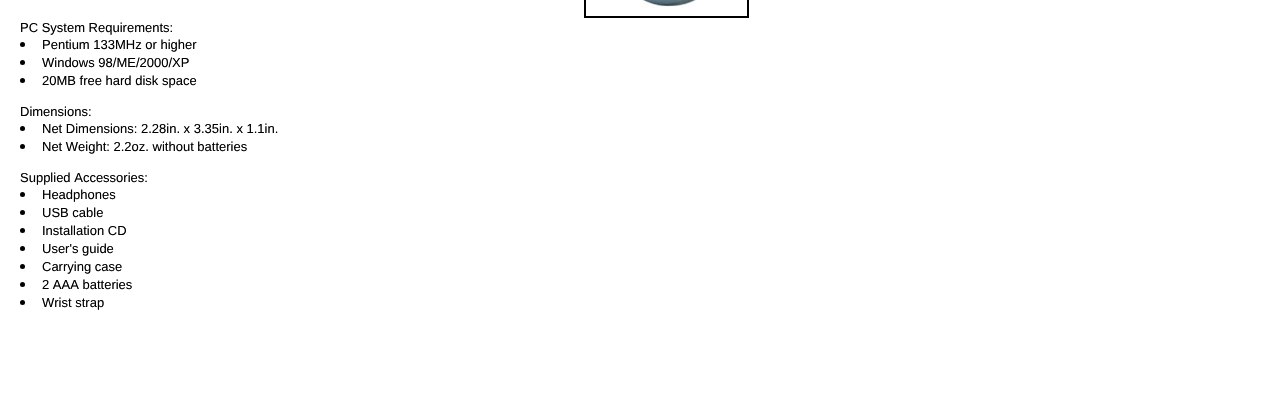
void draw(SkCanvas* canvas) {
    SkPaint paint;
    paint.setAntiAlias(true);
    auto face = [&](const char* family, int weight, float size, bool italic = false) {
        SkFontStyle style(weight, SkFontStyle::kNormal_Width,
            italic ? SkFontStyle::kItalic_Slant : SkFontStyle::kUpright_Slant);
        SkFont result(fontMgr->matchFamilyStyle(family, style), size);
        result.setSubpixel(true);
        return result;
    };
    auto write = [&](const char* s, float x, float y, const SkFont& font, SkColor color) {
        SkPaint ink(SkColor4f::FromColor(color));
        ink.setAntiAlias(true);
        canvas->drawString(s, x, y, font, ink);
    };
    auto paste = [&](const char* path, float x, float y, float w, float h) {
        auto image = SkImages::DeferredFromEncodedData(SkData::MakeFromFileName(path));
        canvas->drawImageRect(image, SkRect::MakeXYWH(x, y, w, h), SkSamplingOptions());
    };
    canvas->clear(SK_ColorWHITE);
    paint.setStyle(SkPaint::kStroke_Style);
    paint.setStrokeWidth(2);
    paint.setColor(SK_ColorBLACK);
    canvas->drawRect(SkRect::MakeXYWH(585, -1, 163, 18), paint);
    paste("pic1.png", 642, 0, 54, 8);
    auto kFont1 = face("Liberation Sans", 400, 13);
    write("PC System Requirements:", 20, 32, kFont1, SK_ColorBLACK);
    paint.setStyle(SkPaint::kFill_Style);
    canvas->drawCircle(22.5f, 44.5f, 2.5f, paint);
    write("Pentium 133MHz or higher", 42, 49, kFont1, SK_ColorBLACK);
    canvas->drawCircle(22.5f, 62.5f, 2.5f, paint);
    write("Windows 98/ME/2000/XP", 42, 67, kFont1, SK_ColorBLACK);
    canvas->drawCircle(22.5f, 80.5f, 2.5f, paint);
    write("20MB free hard disk space", 42, 85, kFont1, SK_ColorBLACK);
    write("Dimensions:", 20, 116, kFont1, SK_ColorBLACK);
    canvas->drawCircle(22.5f, 128.5f, 2.5f, paint);
    write("Net Dimensions: 2.28in. x 3.35in. x 1.1in.", 42, 133, kFont1, SK_ColorBLACK);
    canvas->drawCircle(22.5f, 146.5f, 2.5f, paint);
    write("Net Weight: 2.2oz. without batteries", 42, 151, kFont1, SK_ColorBLACK);
    write("Supplied Accessories:", 20, 182, kFont1, SK_ColorBLACK);
    canvas->drawCircle(22.5f, 194.5f, 2.5f, paint);
    write("Headphones", 42, 199, kFont1, SK_ColorBLACK);
    canvas->drawCircle(22.5f, 212.5f, 2.5f, paint);
    write("USB cable", 42, 217, kFont1, SK_ColorBLACK);
    canvas->drawCircle(22.5f, 230.5f, 2.5f, paint);
    write("Installation CD", 42, 235, kFont1, SK_ColorBLACK);
    canvas->drawCircle(22.5f, 248.5f, 2.5f, paint);
    write("User's guide", 42, 253, kFont1, SK_ColorBLACK);
    canvas->drawCircle(22.5f, 266.5f, 2.5f, paint);
    write("Carrying case", 42, 271, kFont1, SK_ColorBLACK);
    canvas->drawCircle(22.5f, 284.5f, 2.5f, paint);
    write("2 AAA batteries", 42, 289, kFont1, SK_ColorBLACK);
    canvas->drawCircle(22.5f, 302.5f, 2.5f, paint);
    write("Wrist strap", 42, 307, kFont1, SK_ColorBLACK);
}
